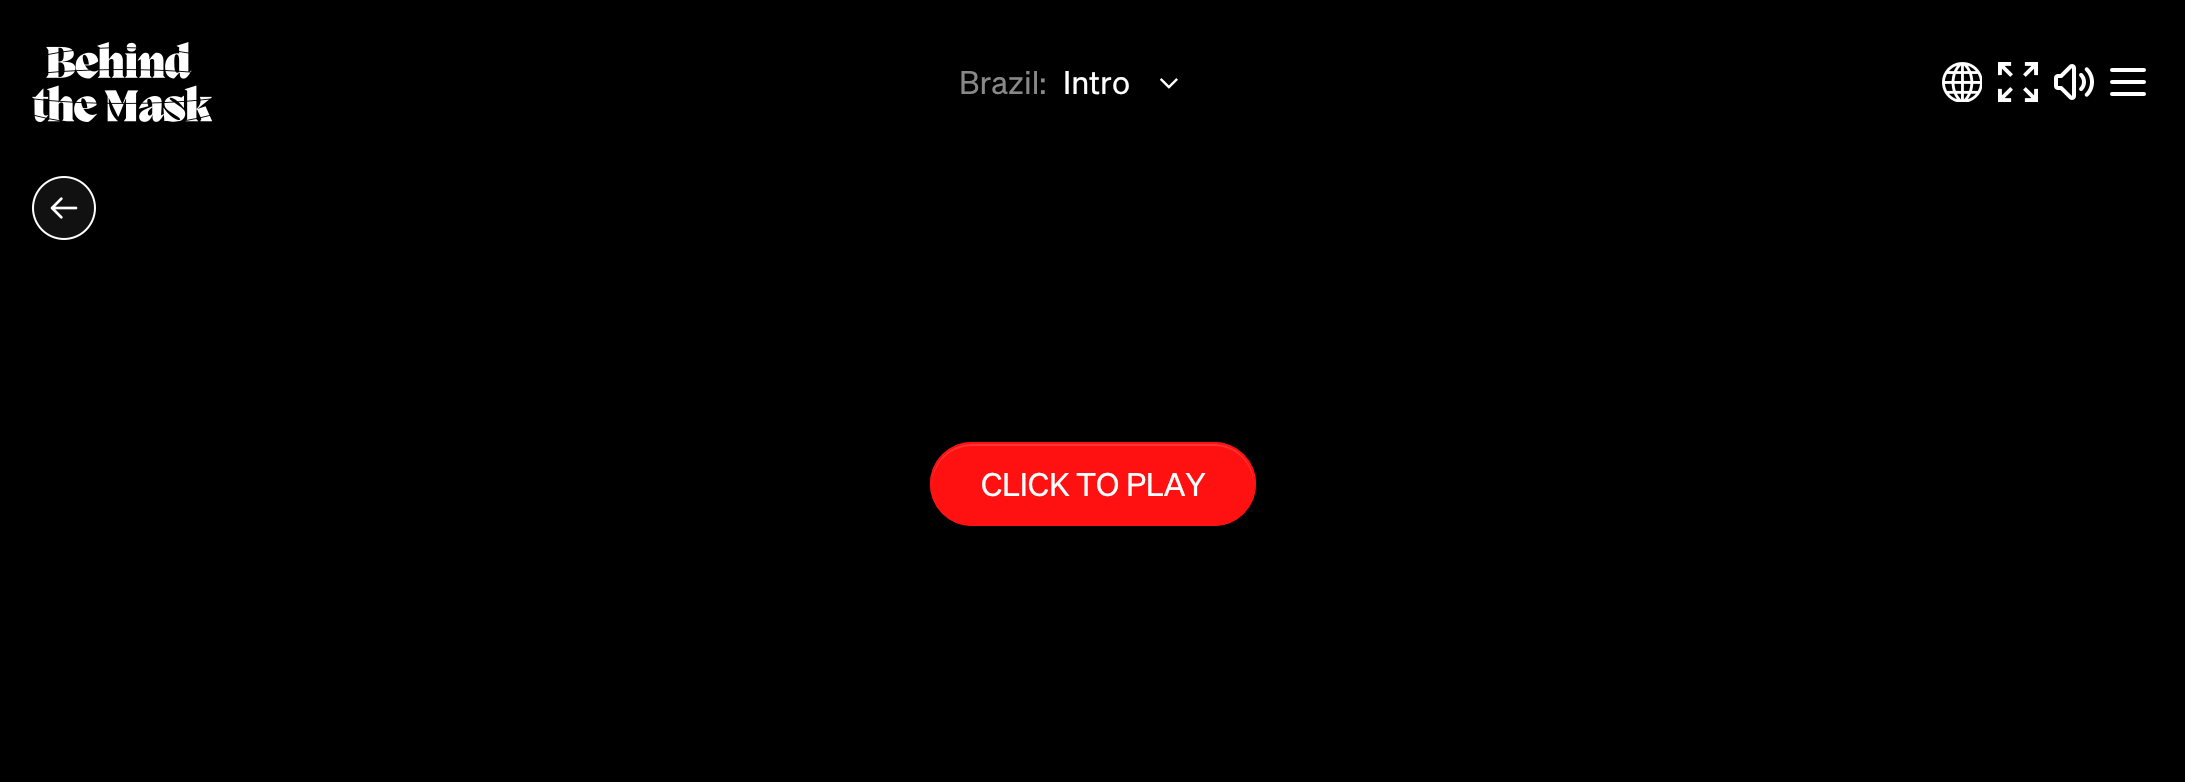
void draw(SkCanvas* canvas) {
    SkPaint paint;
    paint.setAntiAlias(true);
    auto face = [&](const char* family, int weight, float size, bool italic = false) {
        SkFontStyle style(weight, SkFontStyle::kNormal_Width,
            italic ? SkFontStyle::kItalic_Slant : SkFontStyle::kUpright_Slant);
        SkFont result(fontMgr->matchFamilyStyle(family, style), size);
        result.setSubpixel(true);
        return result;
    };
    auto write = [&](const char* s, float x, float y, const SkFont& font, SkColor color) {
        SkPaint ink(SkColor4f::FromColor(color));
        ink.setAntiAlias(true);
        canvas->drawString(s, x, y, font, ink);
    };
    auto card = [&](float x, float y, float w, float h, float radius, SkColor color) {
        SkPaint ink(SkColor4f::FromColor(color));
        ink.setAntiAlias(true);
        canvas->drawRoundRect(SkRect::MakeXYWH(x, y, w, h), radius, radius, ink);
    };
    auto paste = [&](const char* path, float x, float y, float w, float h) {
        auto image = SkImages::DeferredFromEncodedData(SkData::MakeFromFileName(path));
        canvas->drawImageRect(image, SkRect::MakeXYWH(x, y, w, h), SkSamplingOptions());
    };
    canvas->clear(SK_ColorBLACK);
    paste("pic1.png", 32, 42, 180, 80);
    auto kFont1 = face("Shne", 400, 32);
    write("Brazil:", 959, 94, kFont1, SkColorSetRGB(136, 136, 136));
    write("Intro", 1063, 94, kFont1, SK_ColorWHITE);
    paste("pic2.png", 1160, 78, 18, 11);
    paste("pic3.png", 1942, 62, 40, 40);
    paste("pic4.png", 1998, 62, 40, 40);
    paste("pic5.png", 2054, 64, 40, 36);
    paint.setStyle(SkPaint::kStroke_Style);
    paint.setStrokeWidth(4);
    paint.setStrokeCap(SkPaint::kRound_Cap);
    paint.setStrokeJoin(SkPaint::kRound_Join);
    paint.setColor(SK_ColorWHITE);
    canvas->drawPath(SkPathBuilder().moveTo(2112, 94).lineTo(2144, 94).moveTo(2112, 70).lineTo(2144, 70).close().moveTo(2112, 82).lineTo(2144, 82).close().detach(), paint);
    paste("pic6.png", 32, 176, 64, 64);
    card(930, 442, 326, 84, 42, SkColorSetRGB(255, 17, 17));
    paint.setStyle(SkPaint::kFill_Style);
    paint.setColor(SkColorSetRGB(255, 53, 53));
    canvas->drawPath(SkPathBuilder().moveTo(972, 446).lineTo(1214, 446).cubicTo(1236, 446, 1253, 463, 1254, 485).lineTo(1254, 484).cubicTo(1254, 462, 1236, 444, 1214, 444).lineTo(972, 444).cubicTo(950, 444, 932, 462, 932, 484).lineTo(932, 485).cubicTo(933, 463, 950, 446, 972, 446).close().detach(), paint);
    paint.setStyle(SkPaint::kStroke_Style);
    paint.setStrokeWidth(2);
    paint.setStrokeCap(SkPaint::kButt_Cap);
    paint.setStrokeJoin(SkPaint::kMiter_Join);
    paint.setColor(SkColorSetRGB(255, 17, 17));
    canvas->drawRoundRect(SkRect::MakeXYWH(931, 443, 324, 82), 41, 41, paint);
    write("CLICK TO PLAY", 981, 496, kFont1, SK_ColorWHITE);
}
